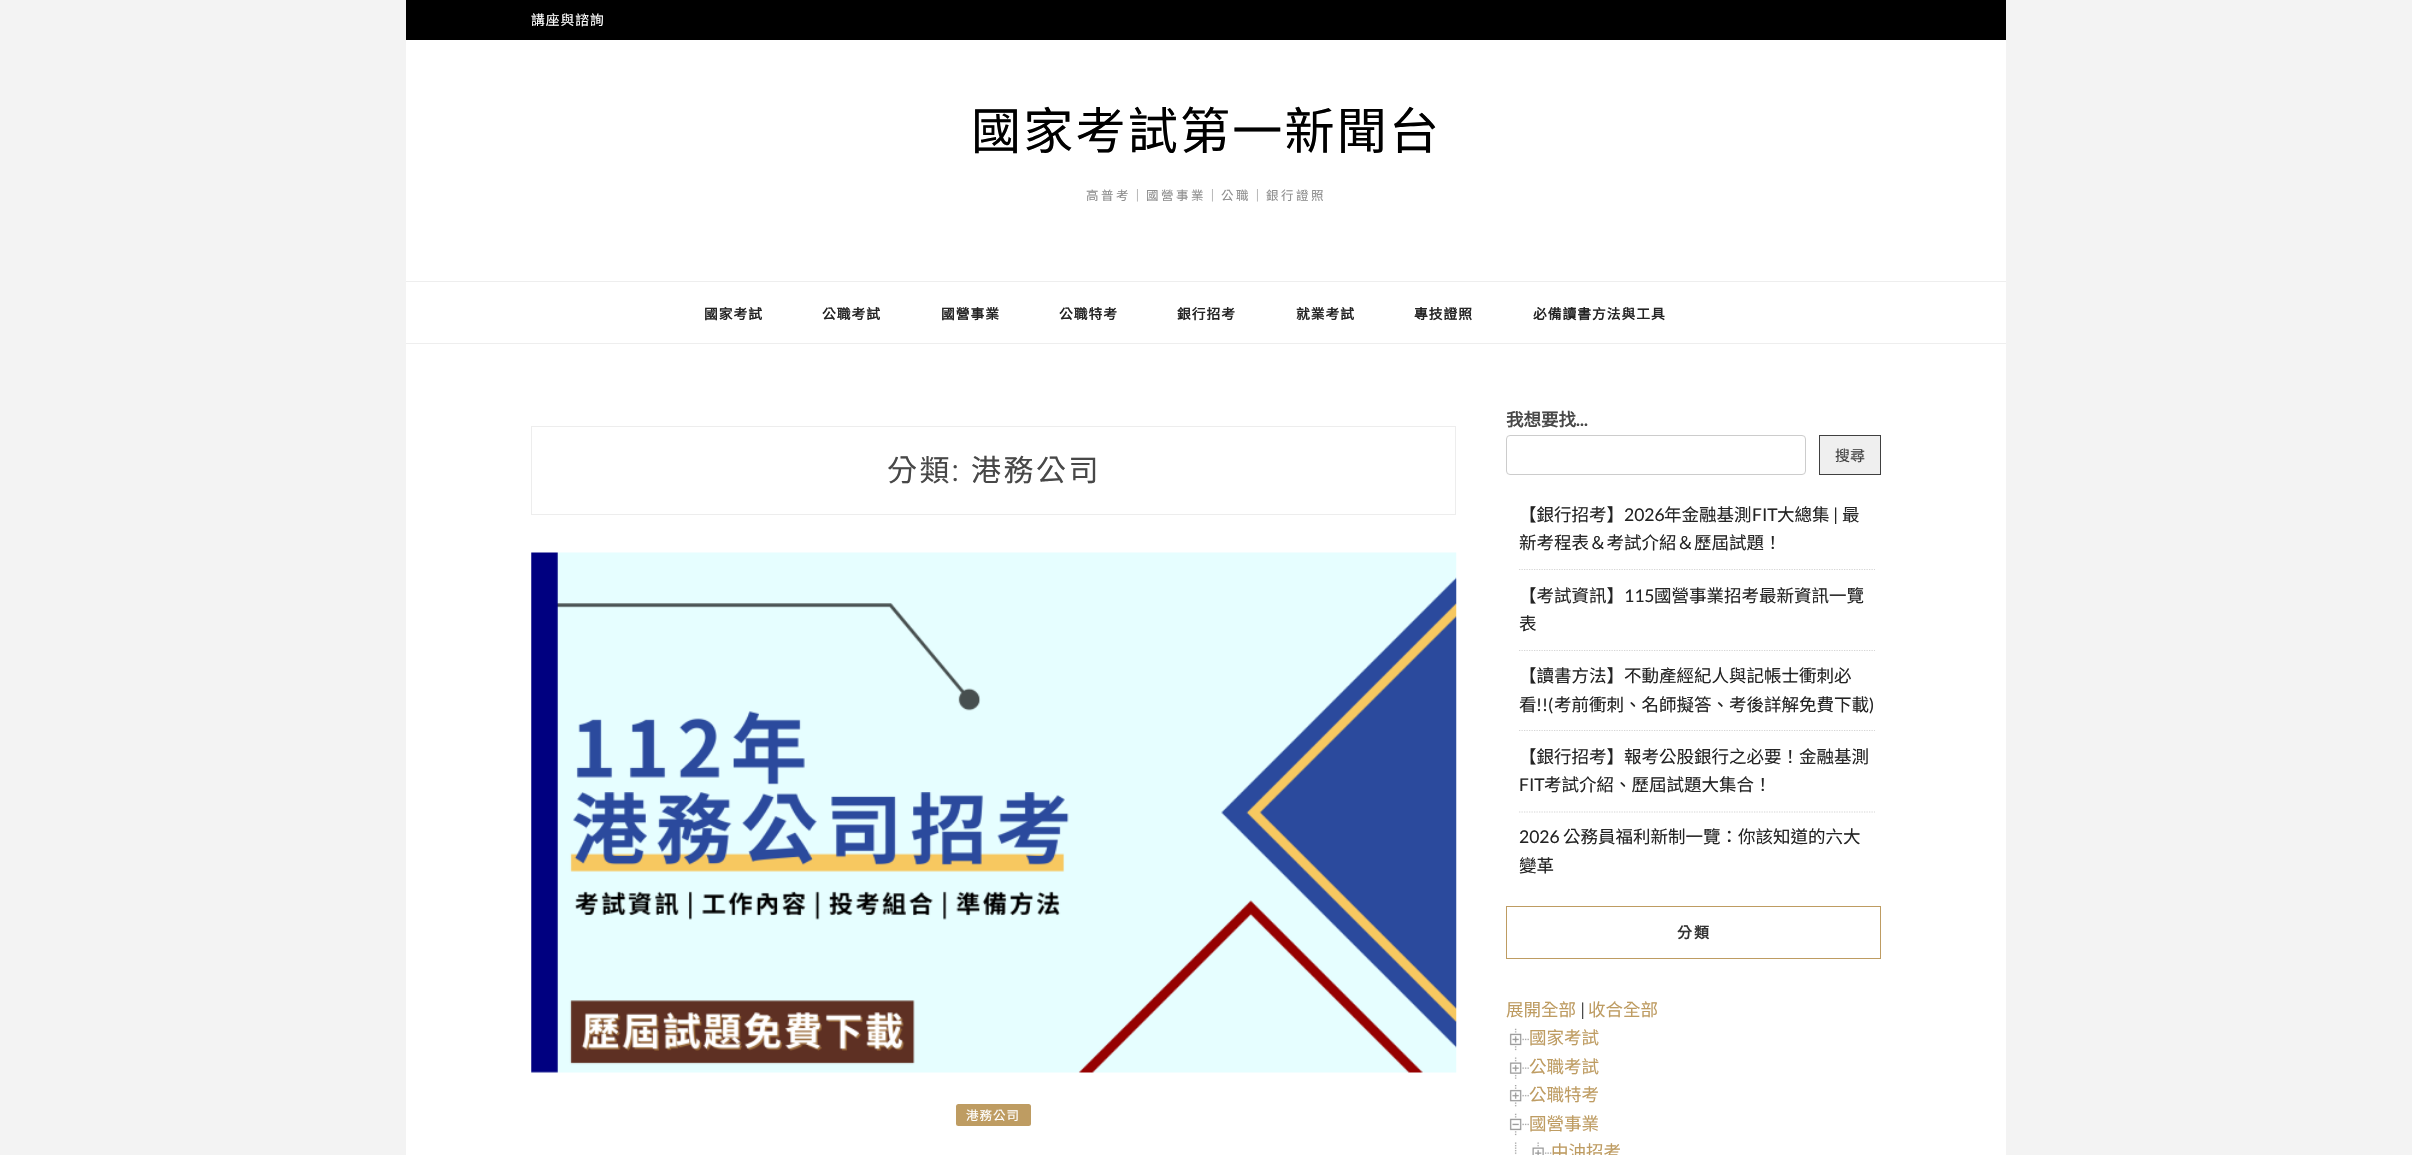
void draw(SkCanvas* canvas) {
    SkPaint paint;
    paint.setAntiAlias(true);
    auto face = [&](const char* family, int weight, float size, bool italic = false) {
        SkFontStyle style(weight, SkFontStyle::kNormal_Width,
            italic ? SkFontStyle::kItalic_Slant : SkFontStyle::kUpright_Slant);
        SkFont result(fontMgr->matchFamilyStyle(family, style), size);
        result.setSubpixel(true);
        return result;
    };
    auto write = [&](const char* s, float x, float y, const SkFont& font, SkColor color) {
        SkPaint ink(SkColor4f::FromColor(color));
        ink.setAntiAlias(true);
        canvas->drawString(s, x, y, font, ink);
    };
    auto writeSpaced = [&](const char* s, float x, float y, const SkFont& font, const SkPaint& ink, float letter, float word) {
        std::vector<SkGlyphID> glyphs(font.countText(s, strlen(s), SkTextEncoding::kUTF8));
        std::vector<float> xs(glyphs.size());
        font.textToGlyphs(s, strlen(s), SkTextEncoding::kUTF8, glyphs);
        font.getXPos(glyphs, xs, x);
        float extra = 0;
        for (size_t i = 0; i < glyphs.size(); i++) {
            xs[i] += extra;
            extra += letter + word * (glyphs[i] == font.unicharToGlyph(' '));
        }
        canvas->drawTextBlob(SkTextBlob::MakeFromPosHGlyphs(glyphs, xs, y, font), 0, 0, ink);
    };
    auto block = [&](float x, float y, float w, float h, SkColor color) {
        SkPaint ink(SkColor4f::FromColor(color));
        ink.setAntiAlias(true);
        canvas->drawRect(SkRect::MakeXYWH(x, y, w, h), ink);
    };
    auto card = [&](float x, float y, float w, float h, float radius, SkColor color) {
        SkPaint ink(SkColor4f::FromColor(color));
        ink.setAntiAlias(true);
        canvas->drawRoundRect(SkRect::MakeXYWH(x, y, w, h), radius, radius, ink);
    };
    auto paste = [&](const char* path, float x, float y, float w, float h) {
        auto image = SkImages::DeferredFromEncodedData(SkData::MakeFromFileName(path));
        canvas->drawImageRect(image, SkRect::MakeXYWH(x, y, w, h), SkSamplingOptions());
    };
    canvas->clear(SkColorSetRGB(243, 243, 243));
    block(406, 40, 1600, 1115, SK_ColorWHITE);
    block(406, 0, 1600, 40, SK_ColorBLACK);
    auto kFont1 = face("Noto Sans CJK TC", 400, 13.75f);
    paint.setColor(SK_ColorWHITE);
    writeSpaced("講座與諮詢", 531, 25, kFont1, paint, 1, 0);
    auto kFont2 = face("Noto Sans CJK TC", 400, 50);
    paint.setColor(SK_ColorBLACK);
    writeSpaced("國家考試第一新聞台", 971, 149, kFont2, paint, 2.25f, 0);
    auto kFont3 = face("Noto Sans CJK TC", 400, 12.5f);
    paint.setColor(SkColorSetRGB(142, 142, 142));
    writeSpaced("高普考｜國營事業｜公職｜銀行證照", 1086, 200, kFont3, paint, 2.5f, 0);
    block(406, 281, 1600, 1, SkColorSetRGB(238, 238, 238));
    block(406, 343, 1600, 1, SkColorSetRGB(238, 238, 238));
    auto kFont4 = face("Noto Sans CJK TC", 700, 13.75f);
    paint.setColor(SkColorSetRGB(36, 36, 36));
    writeSpaced("國家考試", 704, 319, kFont4, paint, 1, 0);
    writeSpaced("公職考試", 822, 319, kFont4, paint, 1, 0);
    writeSpaced("國營事業", 941, 319, kFont4, paint, 1, 0);
    writeSpaced("公職特考", 1059, 319, kFont4, paint, 1, 0);
    writeSpaced("銀行招考", 1177, 319, kFont4, paint, 1, 0);
    writeSpaced("就業考試", 1296, 319, kFont4, paint, 1, 0);
    writeSpaced("專技證照", 1414, 319, kFont4, paint, 1, 0);
    writeSpaced("必備讀書方法與工具", 1533, 319, kFont4, paint, 1, 0);
    paint.setStyle(SkPaint::kStroke_Style);
    paint.setStrokeWidth(1);
    paint.setColor(SkColorSetRGB(237, 237, 237));
    canvas->drawRect(SkRect::MakeXYWH(531.5f, 426.5f, 924, 88), paint);
    auto kFont5 = face("Noto Sans CJK TC", 400, 30);
    paint.setStyle(SkPaint::kFill_Style);
    paint.setColor(SkColorSetRGB(72, 72, 72));
    writeSpaced("分類", 887, 481, kFont5, paint, 2.5f, 0);
    auto kFont6 = face("Montserrat", 400, 30);
    writeSpaced(":", 952, 481, kFont6, paint, 2.5f, 0);
    writeSpaced("港務公司", 971, 481, kFont5, paint, 2.5f, 0);
    paste("pic1.png", 531, 552, 926, 521);
    card(956, 1104, 75, 22, 2.5f, SkColorSetRGB(190, 156, 98));
    paint.setColor(SK_ColorWHITE);
    writeSpaced("港務公司", 966, 1120, kFont3, paint, 1, 0);
    auto kFont7 = face("Noto Sans CJK TC", 700, 17.5f);
    write("我想要找", 1506, 426, kFont7, SkColorSetRGB(72, 72, 72));
    auto kFont8 = face("Lato", 700, 17.5f);
    write("...", 1576, 426, kFont8, SkColorSetRGB(72, 72, 72));
    paint.setStyle(SkPaint::kStroke_Style);
    paint.setColor(SkColorSetRGB(204, 204, 204));
    canvas->drawRoundRect(SkRect::MakeXYWH(1506.5f, 435.5f, 299, 39), 3.5f, 3.5f, paint);
    paint.setStyle(SkPaint::kFill_Style);
    paint.setColor(SkColorSetRGB(239, 239, 239));
    canvas->drawRect(SkRect::MakeXYWH(1819.5f, 435.5f, 61, 39), paint);
    paint.setStyle(SkPaint::kStroke_Style);
    paint.setColor(SkColorSetRGB(64, 64, 64));
    canvas->drawRect(SkRect::MakeXYWH(1819.5f, 435.5f, 61, 39), paint);
    auto kFont9 = face("Noto Sans CJK TC", 400, 15);
    write("搜尋", 1835, 461, kFont9, SkColorSetRGB(64, 64, 64));
    paint.setStrokeWidth(1.2f);
    paint.setColor(SkColorSetRGB(213, 213, 213));
    paint.setPathEffect(SkDashPathEffect::Make({{1.25f, 1.25f}}, 0));
    canvas->drawPath(SkPathBuilder().moveTo(1519, 569.5f).lineTo(1875, 569.5f).detach(), paint);
    paint.setPathEffect(nullptr);
    auto kFont10 = face("Noto Sans CJK TC", 400, 17.5f);
    write("【銀行招考】", 1519, 521, kFont10, SkColorSetRGB(36, 36, 36));
    auto kFont11 = face("Lato", 400, 17.5f);
    write("2026", 1624, 521, kFont11, SkColorSetRGB(36, 36, 36));
    write("年金融基測", 1664, 521, kFont10, SkColorSetRGB(36, 36, 36));
    write("FIT", 1752, 521, kFont11, SkColorSetRGB(36, 36, 36));
    write("大總集", 1777, 521, kFont10, SkColorSetRGB(36, 36, 36));
    write("|", 1833, 521, kFont11, SkColorSetRGB(36, 36, 36));
    write("最", 1842, 521, kFont10, SkColorSetRGB(36, 36, 36));
    write("新考程表＆考試介紹＆歷屆試題！", 1519, 549, kFont10, SkColorSetRGB(36, 36, 36));
    paint.setPathEffect(SkDashPathEffect::Make({{1.25f, 1.25f}}, 0));
    canvas->drawPath(SkPathBuilder().moveTo(1519, 650.5f).lineTo(1875, 650.5f).detach(), paint);
    paint.setPathEffect(nullptr);
    write("【考試資訊】", 1519, 602, kFont10, SkColorSetRGB(36, 36, 36));
    write("115", 1624, 602, kFont11, SkColorSetRGB(36, 36, 36));
    write("國營事業招考最新資訊一覽", 1654, 602, kFont10, SkColorSetRGB(36, 36, 36));
    write("表", 1519, 630, kFont10, SkColorSetRGB(36, 36, 36));
    paint.setPathEffect(SkDashPathEffect::Make({{1.25f, 1.25f}}, 0));
    canvas->drawPath(SkPathBuilder().moveTo(1519, 730.5f).lineTo(1875, 730.5f).detach(), paint);
    paint.setPathEffect(nullptr);
    write("【讀書方法】不動產經紀人與記帳士衝刺必", 1519, 682, kFont10, SkColorSetRGB(36, 36, 36));
    write("看", 1519, 711, kFont10, SkColorSetRGB(36, 36, 36));
    write("!!(", 1536, 711, kFont11, SkColorSetRGB(36, 36, 36));
    write("考前衝刺、名師擬答、考後詳解免費下載", 1554, 711, kFont10, SkColorSetRGB(36, 36, 36));
    write(")", 1869, 711, kFont11, SkColorSetRGB(36, 36, 36));
    paint.setPathEffect(SkDashPathEffect::Make({{1.25f, 1.25f}}, 0));
    canvas->drawPath(SkPathBuilder().moveTo(1519, 812).lineTo(1875, 812).detach(), paint);
    paint.setPathEffect(nullptr);
    write("【銀行招考】報考公股銀行之必要！金融基測", 1519, 763, kFont10, SkColorSetRGB(36, 36, 36));
    write("FIT", 1519, 791, kFont11, SkColorSetRGB(36, 36, 36));
    write("考試介紹、歷屆試題大集合！", 1544, 791, kFont10, SkColorSetRGB(36, 36, 36));
    write("2026", 1519, 843, kFont11, SkColorSetRGB(36, 36, 36));
    write("公務員福利新制一覽：你該知道的六大", 1563, 843, kFont10, SkColorSetRGB(36, 36, 36));
    write("變革", 1519, 872, kFont10, SkColorSetRGB(36, 36, 36));
    paint.setStrokeWidth(1);
    paint.setColor(SkColorSetRGB(190, 156, 98));
    canvas->drawRect(SkRect::MakeXYWH(1506.5f, 906.5f, 374, 52), paint);
    auto kFont12 = face("Noto Sans CJK TC", 700, 15);
    paint.setStyle(SkPaint::kFill_Style);
    paint.setColor(SkColorSetRGB(51, 51, 51));
    writeSpaced("分類", 1677, 938, kFont12, paint, 2, 0);
    write("展開全部", 1506, 1016, kFont10, SkColorSetRGB(190, 156, 98));
    write("|", 1580, 1016, kFont11, SkColorSetRGB(72, 72, 72));
    write("收合全部", 1588, 1016, kFont10, SkColorSetRGB(190, 156, 98));
    paste("pic2.png", 1509, 1028, 20, 23);
    write("國家考試", 1529, 1044, kFont10, SkColorSetRGB(190, 156, 98));
    paste("pic3.png", 1509, 1057, 20, 22);
    write("公職考試", 1529, 1073, kFont10, SkColorSetRGB(190, 156, 98));
    paste("pic4.png", 1509, 1085, 20, 22);
    write("公職特考", 1529, 1101, kFont10, SkColorSetRGB(190, 156, 98));
    paste("pic5.png", 1509, 1113, 20, 23);
    write("國營事業", 1529, 1130, kFont10, SkColorSetRGB(190, 156, 98));
    paste("pic6.png", 1514, 1142, 3, 13);
    paste("pic7.png", 1532, 1142, 20, 13);
    write("中油招考", 1551, 1158, kFont10, SkColorSetRGB(190, 156, 98));
}
